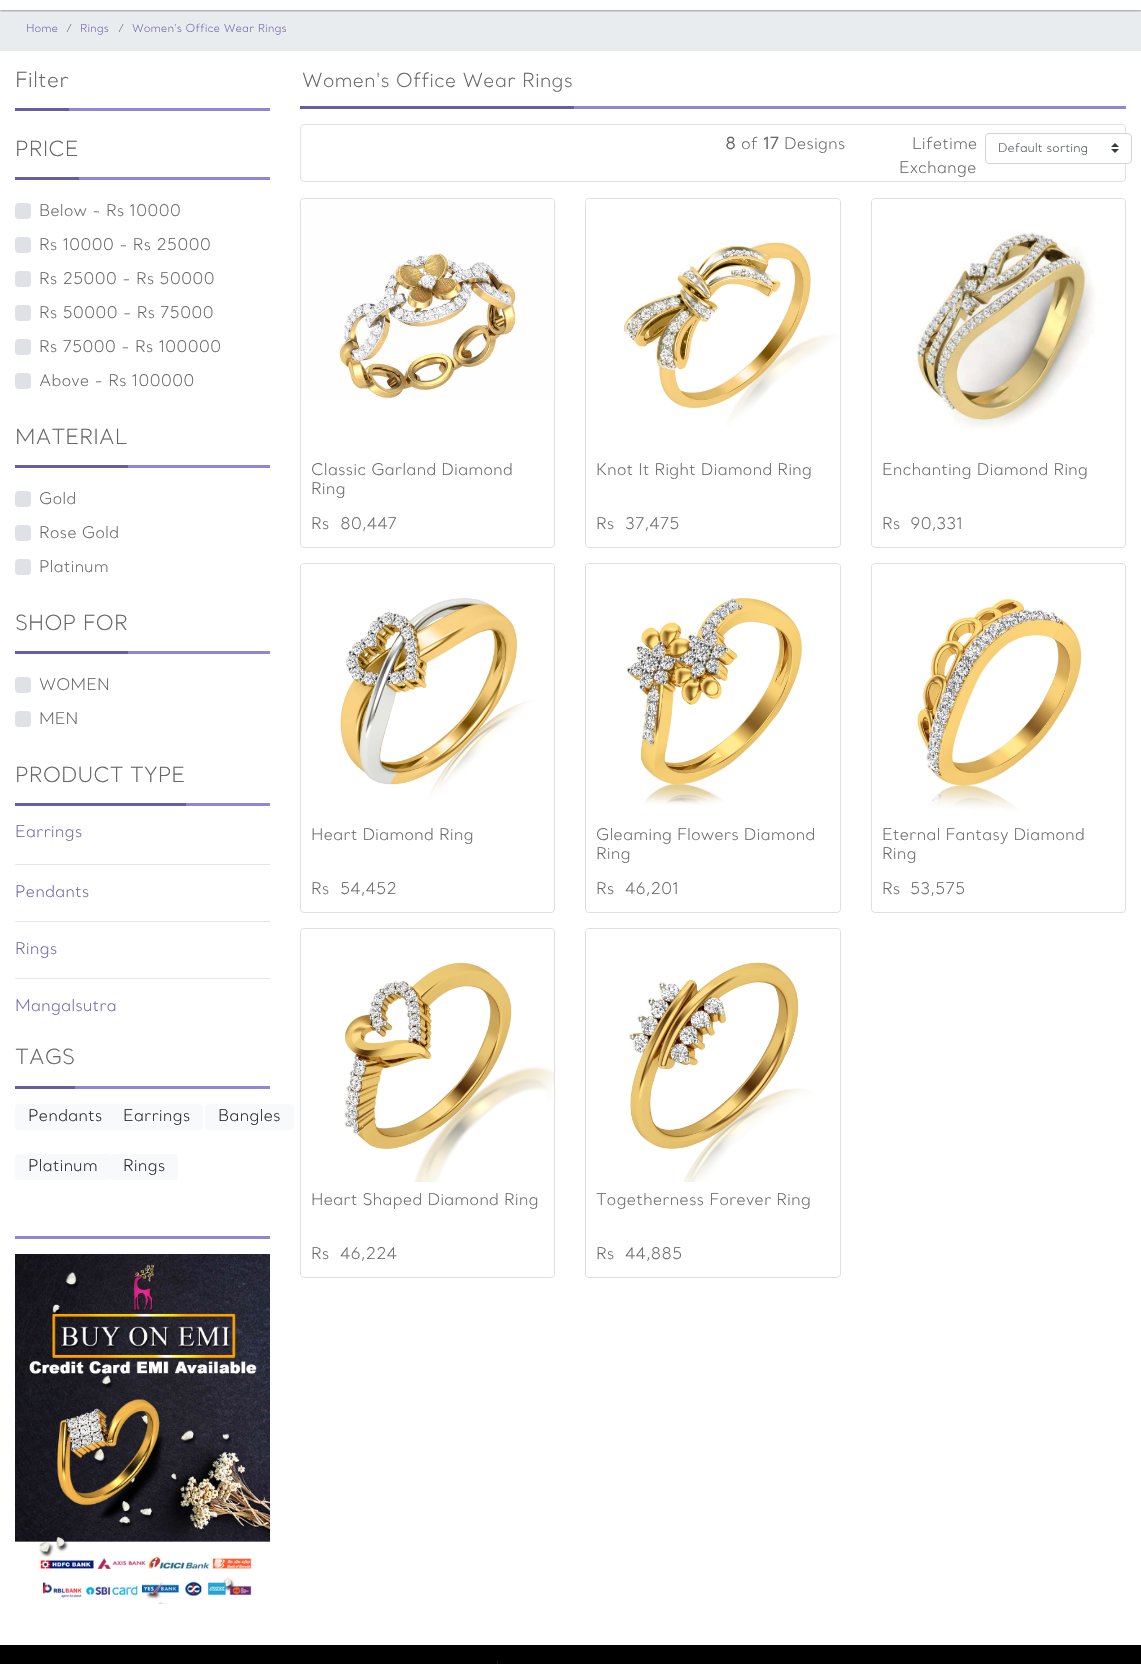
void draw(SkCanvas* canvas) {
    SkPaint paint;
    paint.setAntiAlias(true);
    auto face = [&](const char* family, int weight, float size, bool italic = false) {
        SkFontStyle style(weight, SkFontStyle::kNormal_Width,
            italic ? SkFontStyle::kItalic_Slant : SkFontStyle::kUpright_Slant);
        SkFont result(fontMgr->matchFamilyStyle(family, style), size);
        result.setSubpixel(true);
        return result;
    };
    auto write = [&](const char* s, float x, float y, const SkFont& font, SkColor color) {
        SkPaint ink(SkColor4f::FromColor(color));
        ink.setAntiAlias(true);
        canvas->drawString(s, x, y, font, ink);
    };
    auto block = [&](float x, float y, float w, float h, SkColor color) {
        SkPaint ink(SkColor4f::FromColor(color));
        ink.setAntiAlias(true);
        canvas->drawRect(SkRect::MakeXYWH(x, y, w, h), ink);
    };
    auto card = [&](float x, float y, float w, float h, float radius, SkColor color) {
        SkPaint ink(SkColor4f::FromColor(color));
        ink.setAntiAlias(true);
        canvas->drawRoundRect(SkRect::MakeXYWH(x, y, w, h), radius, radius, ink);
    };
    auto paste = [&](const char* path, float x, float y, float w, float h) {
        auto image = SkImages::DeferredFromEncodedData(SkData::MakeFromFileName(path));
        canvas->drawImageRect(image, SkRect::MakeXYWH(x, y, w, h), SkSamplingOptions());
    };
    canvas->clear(SK_ColorWHITE);
    block(0, 10, 1141, 41, SkColorSetRGB(233, 236, 239));
    canvas->save();
    canvas->clipRect(SkRect::MakeXYWH(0, 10, 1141, 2));
    paint.setColor(SkColorSetARGB(61, 0, 0, 0));
    paint.setMaskFilter(SkMaskFilter::MakeBlur(kNormal_SkBlurStyle, 1));
    canvas->drawRect(SkRect::MakeXYWH(0, -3, 1141, 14), paint);
    paint.setMaskFilter(nullptr);
    paint.setColor(SkColorSetARGB(31, 0, 0, 0));
    paint.setMaskFilter(SkMaskFilter::MakeBlur(kNormal_SkBlurStyle, 1.5f));
    canvas->drawRect(SkRect::MakeXYWH(0, -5, 1141, 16), paint);
    paint.setMaskFilter(nullptr);
    canvas->restore();
    auto kFont1 = face("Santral", 300, 11);
    write("Home", 26, 32, kFont1, SkColorSetRGB(113, 101, 167));
    write("/", 66, 32, kFont1, SkColorSetRGB(108, 117, 125));
    write("Rings", 80, 32, kFont1, SkColorSetRGB(113, 101, 167));
    write("/", 118, 32, kFont1, SkColorSetRGB(108, 117, 125));
    write("Women's Office Wear Rings", 132, 32, kFont1, SkColorSetRGB(113, 101, 167));
    block(69, 108, 201, 3, SkColorSetRGB(147, 132, 214));
    block(15, 108, 54, 3, SkColorSetRGB(105, 92, 163));
    auto kFont2 = face("Santral", 300, 20.75f);
    write("Filter", 15, 87, kFont2, SkColorSetRGB(102, 102, 102));
    block(79, 177, 191, 3, SkColorSetRGB(147, 132, 214));
    block(15, 177, 64, 3, SkColorSetRGB(105, 92, 163));
    write("PRICE", 15, 156, kFont2, SkColorSetRGB(102, 102, 102));
    card(15, 203, 16, 16, 4, SkColorSetRGB(222, 226, 230));
    auto kFont3 = face("Santral", 300, 16);
    write("Below - Rs 10000", 39, 216, kFont3, SkColorSetRGB(102, 102, 102));
    card(15, 237, 16, 16, 4, SkColorSetRGB(222, 226, 230));
    write("Rs 10000 - Rs 25000", 39, 250, kFont3, SkColorSetRGB(102, 102, 102));
    card(15, 271, 16, 16, 4, SkColorSetRGB(222, 226, 230));
    write("Rs 25000 - Rs 50000", 39, 284, kFont3, SkColorSetRGB(102, 102, 102));
    card(15, 305, 16, 16, 4, SkColorSetRGB(222, 226, 230));
    write("Rs 50000 - Rs 75000", 39, 318, kFont3, SkColorSetRGB(102, 102, 102));
    card(15, 339, 16, 16, 4, SkColorSetRGB(222, 226, 230));
    write("Rs 75000 - Rs 100000", 39, 352, kFont3, SkColorSetRGB(102, 102, 102));
    card(15, 373, 16, 16, 4, SkColorSetRGB(222, 226, 230));
    write("Above - Rs 100000", 39, 386, kFont3, SkColorSetRGB(102, 102, 102));
    block(128, 465, 142, 3, SkColorSetRGB(147, 132, 214));
    block(15, 465, 113, 3, SkColorSetRGB(105, 92, 163));
    write("MATERIAL", 15, 444, kFont2, SkColorSetRGB(102, 102, 102));
    card(15, 491, 16, 16, 4, SkColorSetRGB(222, 226, 230));
    write("Gold", 39, 504, kFont3, SkColorSetRGB(102, 102, 102));
    card(15, 525, 16, 16, 4, SkColorSetRGB(222, 226, 230));
    write("Rose Gold", 39, 538, kFont3, SkColorSetRGB(102, 102, 102));
    card(15, 559, 16, 16, 4, SkColorSetRGB(222, 226, 230));
    write("Platinum", 39, 572, kFont3, SkColorSetRGB(102, 102, 102));
    block(128, 651, 142, 3, SkColorSetRGB(147, 132, 214));
    block(15, 651, 113, 3, SkColorSetRGB(105, 92, 163));
    write("SHOP FOR", 15, 630, kFont2, SkColorSetRGB(102, 102, 102));
    card(15, 677, 16, 16, 4, SkColorSetRGB(222, 226, 230));
    write("WOMEN", 39, 690, kFont3, SkColorSetRGB(102, 102, 102));
    card(15, 711, 16, 16, 4, SkColorSetRGB(222, 226, 230));
    write("MEN", 39, 724, kFont3, SkColorSetRGB(102, 102, 102));
    block(186, 803, 84, 3, SkColorSetRGB(147, 132, 214));
    block(15, 803, 171, 3, SkColorSetRGB(105, 92, 163));
    write("PRODUCT TYPE", 15, 782, kFont2, SkColorSetRGB(102, 102, 102));
    write("Earrings", 15, 837, kFont3, SkColorSetRGB(113, 101, 167));
    block(15, 864, 255, 1, SkColorSetRGB(230, 230, 230));
    write("Pendants", 15, 897, kFont3, SkColorSetRGB(113, 101, 167));
    block(15, 921, 255, 1, SkColorSetRGB(230, 230, 230));
    write("Rings", 15, 954, kFont3, SkColorSetRGB(113, 101, 167));
    block(15, 978, 255, 1, SkColorSetRGB(230, 230, 230));
    write("Mangalsutra", 15, 1011, kFont3, SkColorSetRGB(113, 101, 167));
    block(75, 1086, 195, 3, SkColorSetRGB(147, 132, 214));
    block(15, 1086, 60, 3, SkColorSetRGB(105, 92, 163));
    write("TAGS", 15, 1064, kFont2, SkColorSetRGB(102, 102, 102));
    card(15, 1104, 100, 26, 4, SkColorSetRGB(248, 249, 250));
    write("Pendants", 28, 1121, kFont3, SkColorSetRGB(33, 37, 41));
    card(110, 1104, 93, 26, 4, SkColorSetRGB(248, 249, 250));
    write("Earrings", 123, 1121, kFont3, SkColorSetRGB(33, 37, 41));
    card(205, 1104, 89, 26, 4, SkColorSetRGB(248, 249, 250));
    write("Bangles", 218, 1121, kFont3, SkColorSetRGB(33, 37, 41));
    card(15, 1154, 96, 26, 4, SkColorSetRGB(248, 249, 250));
    write("Platinum", 28, 1171, kFont3, SkColorSetRGB(33, 37, 41));
    card(110, 1154, 68, 26, 4, SkColorSetRGB(248, 249, 250));
    write("Rings", 123, 1171, kFont3, SkColorSetRGB(33, 37, 41));
    block(15, 1236, 255, 3, SkColorSetRGB(147, 132, 214));
    paste("pic1.png", 15, 1254, 255, 350);
    block(574, 106, 552, 3, SkColorSetRGB(147, 132, 214));
    block(300, 106, 274, 3, SkColorSetRGB(105, 92, 163));
    auto kFont4 = face("Santral", 300, 19.25f);
    write("Women's Office Wear Rings", 302, 87, kFont4, SkColorSetRGB(102, 102, 102));
    paint.setStyle(SkPaint::kStroke_Style);
    paint.setStrokeWidth(1);
    paint.setColor(SkColorSetRGB(222, 226, 230));
    canvas->drawRoundRect(SkRect::MakeXYWH(300.5f, 124.5f, 825, 57), 3.5f, 3.5f, paint);
    auto kFont5 = face("Santral", 700, 16);
    write("8", 725, 149, kFont5, SkColorSetRGB(102, 102, 102));
    write("of", 741, 149, kFont3, SkColorSetRGB(102, 102, 102));
    write("17", 763, 149, kFont5, SkColorSetRGB(102, 102, 102));
    write("Designs", 784, 149, kFont3, SkColorSetRGB(102, 102, 102));
    write("Lifetime", 912, 149, kFont3, SkColorSetRGB(102, 102, 102));
    write("Exchange", 899, 173, kFont3, SkColorSetRGB(102, 102, 102));
    card(985, 133, 147, 31, 4, SK_ColorWHITE);
    paste("pic2.png", 1111, 143, 8, 10);
    paint.setColor(SkColorSetRGB(206, 212, 218));
    canvas->drawRoundRect(SkRect::MakeXYWH(985.5f, 133.5f, 146, 30), 3.5f, 3.5f, paint);
    auto kFont6 = face("Santral", 300, 12);
    write("Default sorting", 998, 152, kFont6, SkColorSetRGB(73, 80, 87));
    paint.setColor(SkColorSetRGB(223, 223, 223));
    canvas->drawRoundRect(SkRect::MakeXYWH(300.5f, 198.5f, 254, 349), 3.5f, 3.5f, paint);
    paste("pic3.png", 301, 199, 253, 200);
    write("Classic Garland Diamond", 311, 475, kFont3, SkColorSetRGB(102, 102, 102));
    write("Ring", 311, 494, kFont3, SkColorSetRGB(102, 102, 102));
    write("Rs", 311, 529, kFont3, SkColorSetRGB(102, 102, 102));
    write("80,447", 340, 529, kFont3, SkColorSetRGB(102, 102, 102));
    canvas->drawRoundRect(SkRect::MakeXYWH(585.5f, 198.5f, 255, 349), 3.5f, 3.5f, paint);
    paste("pic4.png", 586, 199, 254, 227);
    write("Knot It Right Diamond Ring", 596, 475, kFont3, SkColorSetRGB(102, 102, 102));
    write("Rs", 596, 529, kFont3, SkColorSetRGB(102, 102, 102));
    write("37,475", 625, 529, kFont3, SkColorSetRGB(102, 102, 102));
    canvas->drawRoundRect(SkRect::MakeXYWH(871.5f, 198.5f, 254, 349), 3.5f, 3.5f, paint);
    paste("pic5.png", 872, 199, 253, 230);
    write("Enchanting Diamond Ring", 882, 475, kFont3, SkColorSetRGB(102, 102, 102));
    write("Rs", 882, 529, kFont3, SkColorSetRGB(102, 102, 102));
    write("90,331", 910, 529, kFont3, SkColorSetRGB(102, 102, 102));
    canvas->drawRoundRect(SkRect::MakeXYWH(300.5f, 563.5f, 254, 349), 3.5f, 3.5f, paint);
    paste("pic6.png", 301, 564, 253, 236);
    write("Heart Diamond Ring", 311, 840, kFont3, SkColorSetRGB(102, 102, 102));
    write("Rs", 311, 894, kFont3, SkColorSetRGB(102, 102, 102));
    write("54,452", 340, 894, kFont3, SkColorSetRGB(102, 102, 102));
    canvas->drawRoundRect(SkRect::MakeXYWH(585.5f, 563.5f, 255, 349), 3.5f, 3.5f, paint);
    paste("pic7.png", 586, 564, 254, 241);
    write("Gleaming Flowers Diamond", 596, 840, kFont3, SkColorSetRGB(102, 102, 102));
    write("Ring", 596, 859, kFont3, SkColorSetRGB(102, 102, 102));
    write("Rs", 596, 894, kFont3, SkColorSetRGB(102, 102, 102));
    write("46,201", 625, 894, kFont3, SkColorSetRGB(102, 102, 102));
    canvas->drawRoundRect(SkRect::MakeXYWH(871.5f, 563.5f, 254, 349), 3.5f, 3.5f, paint);
    paste("pic8.png", 872, 564, 253, 247);
    write("Eternal Fantasy Diamond", 882, 840, kFont3, SkColorSetRGB(102, 102, 102));
    write("Ring", 882, 859, kFont3, SkColorSetRGB(102, 102, 102));
    write("Rs", 882, 894, kFont3, SkColorSetRGB(102, 102, 102));
    write("53,575", 910, 894, kFont3, SkColorSetRGB(102, 102, 102));
    canvas->drawRoundRect(SkRect::MakeXYWH(300.5f, 928.5f, 254, 349), 3.5f, 3.5f, paint);
    paste("pic9.png", 301, 929, 253, 253);
    write("Heart Shaped Diamond Ring", 311, 1205, kFont3, SkColorSetRGB(102, 102, 102));
    write("Rs", 311, 1259, kFont3, SkColorSetRGB(102, 102, 102));
    write("46,224", 340, 1259, kFont3, SkColorSetRGB(102, 102, 102));
    canvas->drawRoundRect(SkRect::MakeXYWH(585.5f, 928.5f, 255, 349), 3.5f, 3.5f, paint);
    paste("pic10.png", 586, 929, 254, 253);
    write("Togetherness Forever Ring", 596, 1205, kFont3, SkColorSetRGB(102, 102, 102));
    write("Rs", 596, 1259, kFont3, SkColorSetRGB(102, 102, 102));
    write("44,885", 625, 1259, kFont3, SkColorSetRGB(102, 102, 102));
    block(0, 1645, 1141, 19, SK_ColorBLACK);
    paste("pic11.png", 497, 1660, 1, 4);
}
